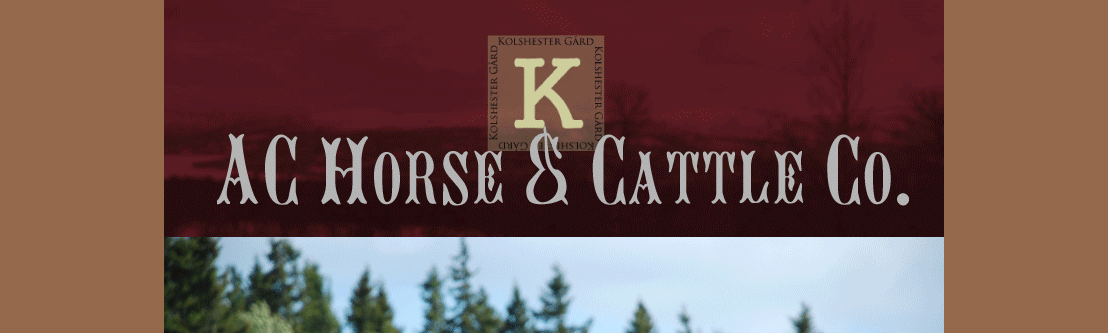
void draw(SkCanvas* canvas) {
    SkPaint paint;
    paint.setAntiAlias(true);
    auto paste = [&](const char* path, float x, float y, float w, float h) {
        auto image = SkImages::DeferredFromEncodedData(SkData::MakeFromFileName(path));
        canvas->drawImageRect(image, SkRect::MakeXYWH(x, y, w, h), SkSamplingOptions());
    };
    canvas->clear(SkColorSetRGB(149, 105, 76));
    paste("pic1.png", 164, 0, 780, 333);
}
